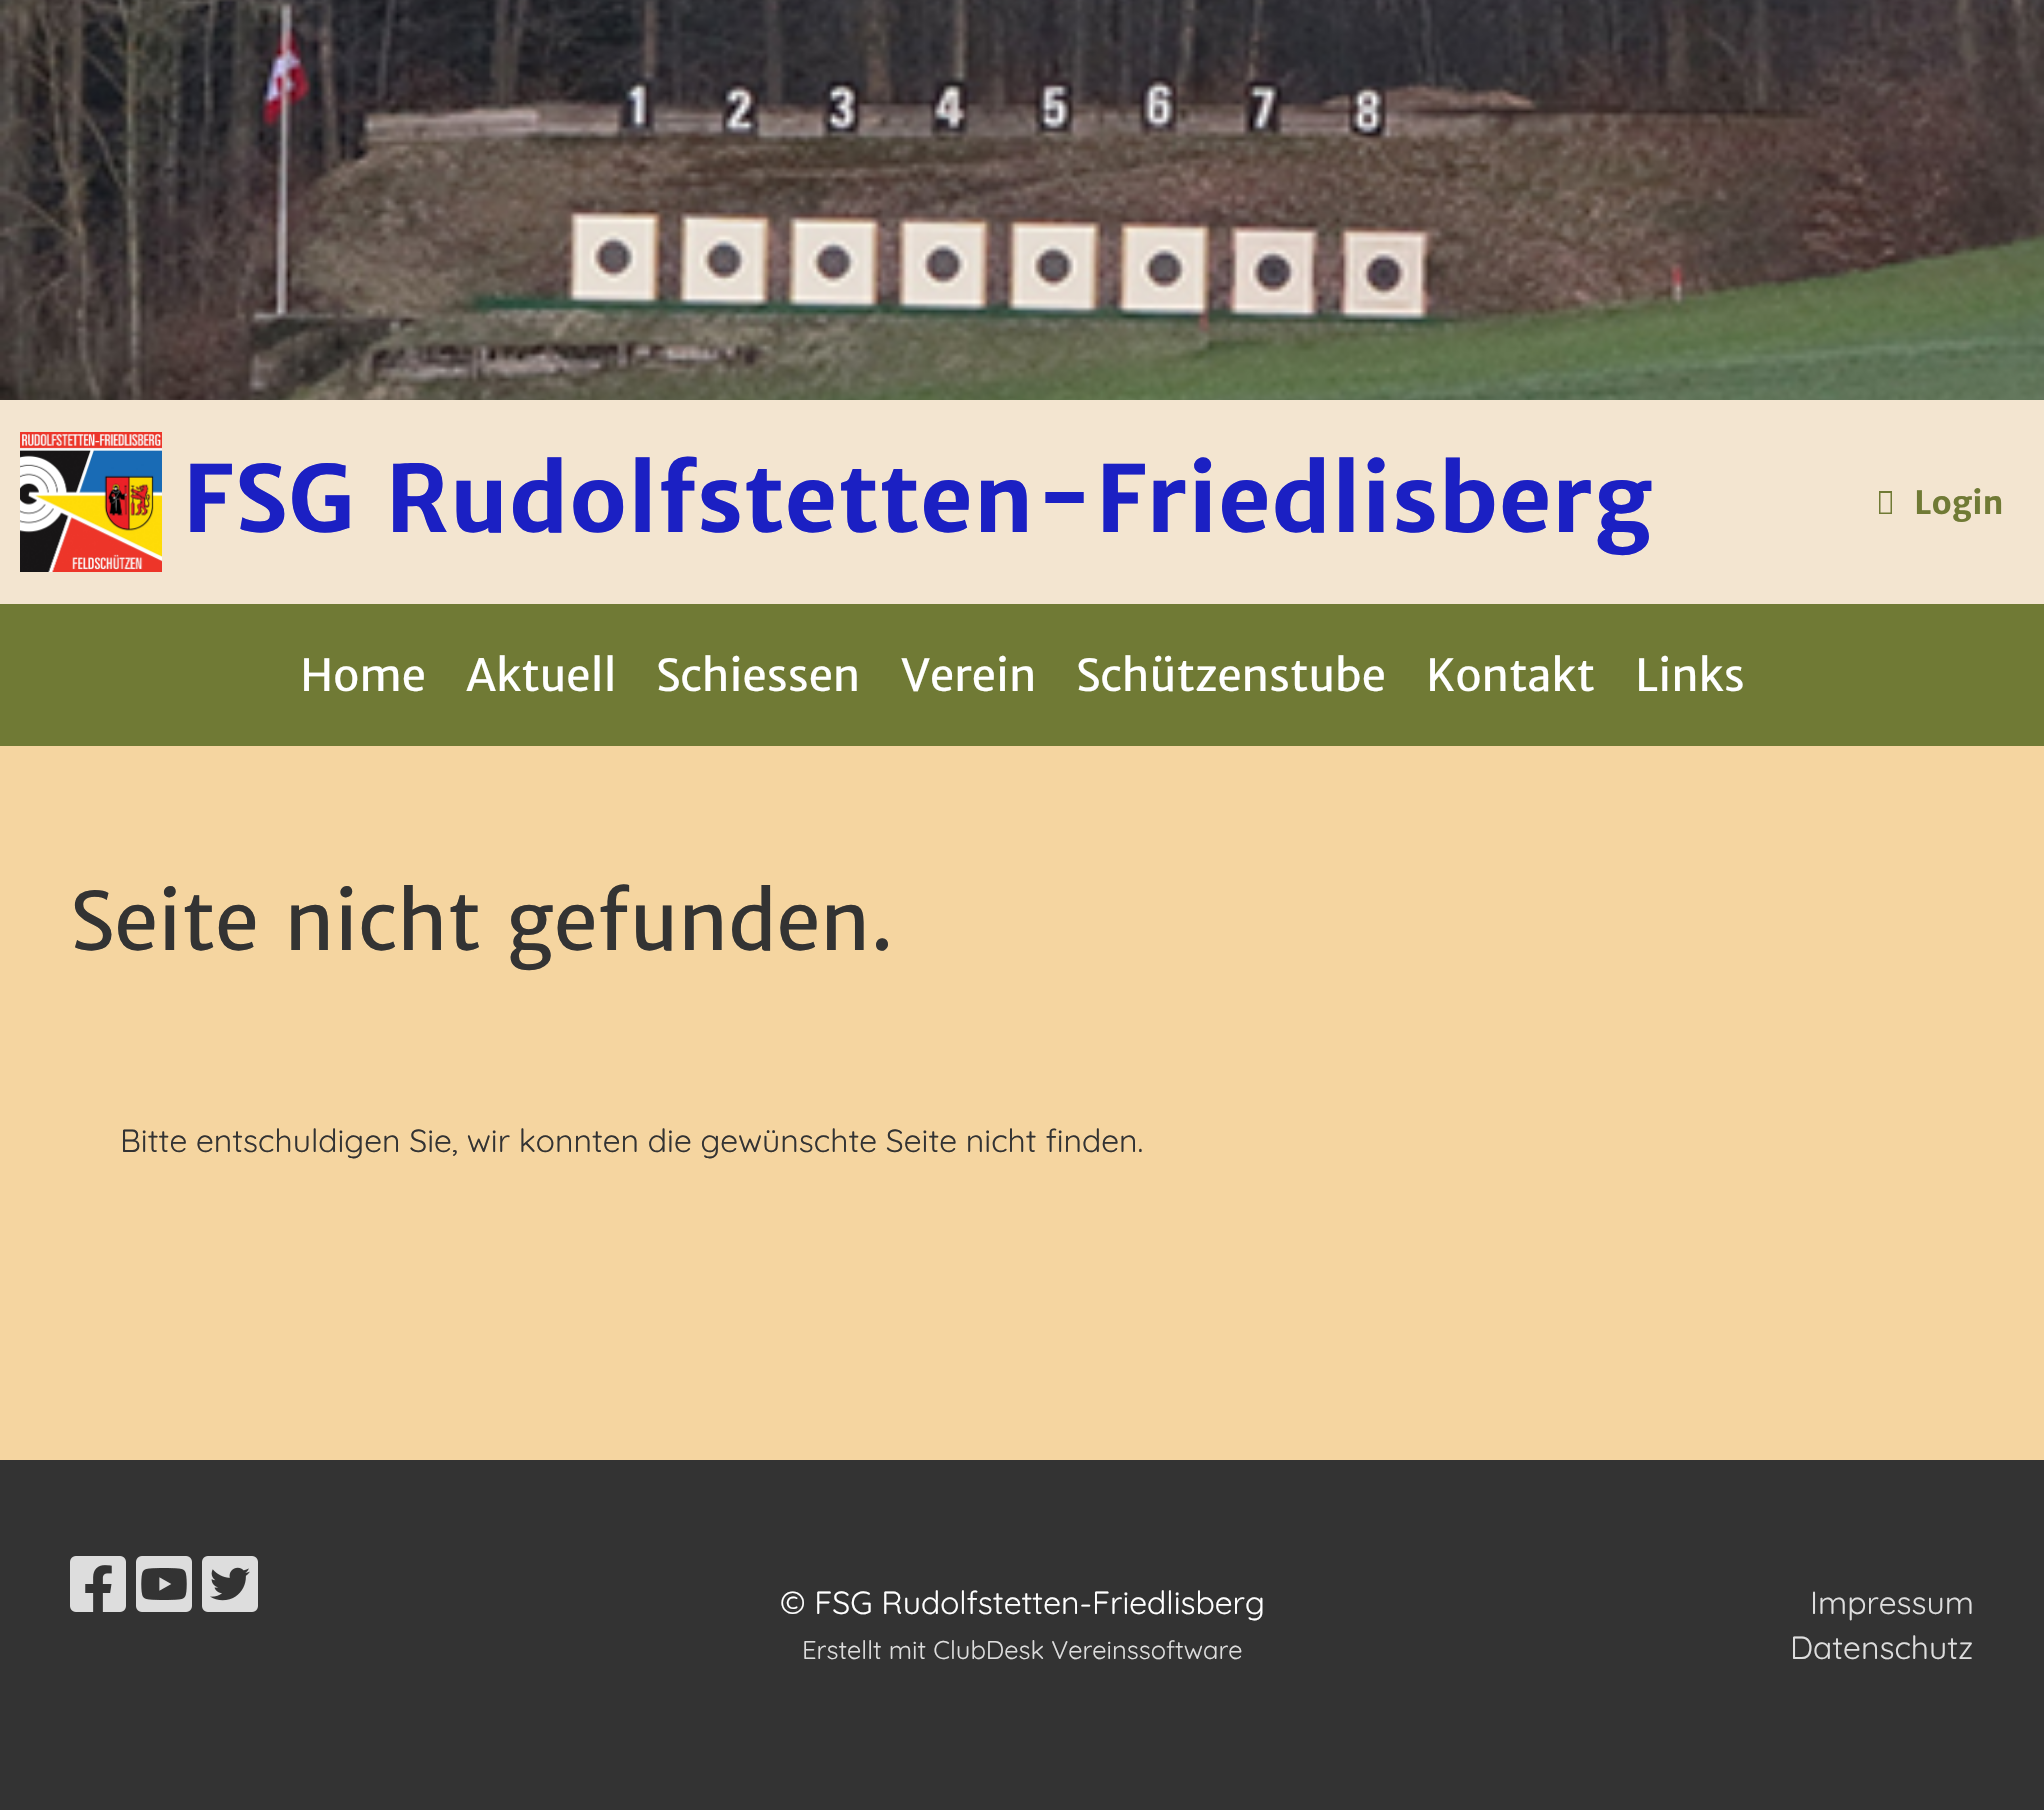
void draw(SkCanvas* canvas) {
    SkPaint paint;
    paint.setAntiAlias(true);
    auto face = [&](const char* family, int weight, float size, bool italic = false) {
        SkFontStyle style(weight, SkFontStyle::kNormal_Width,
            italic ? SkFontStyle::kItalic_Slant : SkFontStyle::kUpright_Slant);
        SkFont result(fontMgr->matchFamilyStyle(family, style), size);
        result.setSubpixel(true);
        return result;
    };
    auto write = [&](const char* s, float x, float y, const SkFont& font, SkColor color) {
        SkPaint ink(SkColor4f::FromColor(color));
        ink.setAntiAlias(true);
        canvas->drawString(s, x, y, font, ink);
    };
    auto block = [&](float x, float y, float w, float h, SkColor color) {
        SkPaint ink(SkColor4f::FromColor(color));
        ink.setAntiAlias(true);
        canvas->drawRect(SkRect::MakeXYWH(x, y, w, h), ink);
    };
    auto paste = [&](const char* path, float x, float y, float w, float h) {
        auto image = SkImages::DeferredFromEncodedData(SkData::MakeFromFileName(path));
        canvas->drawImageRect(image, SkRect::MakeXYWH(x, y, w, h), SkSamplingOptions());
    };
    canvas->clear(SkColorSetRGB(245, 213, 160));
    paste("pic1.png", 0, 0, 2044, 400);
    block(0, 400, 2044, 204, SkColorSetRGB(243, 229, 208));
    paste("pic2.png", 20, 432, 142, 140);
    auto kFont1 = face("Merriweather Sans", 700, 92);
    write("FSG Rudolfstetten-Friedlisberg", 182, 532, kFont1, SkColorSetRGB(27, 32, 195));
    paint.setColor(SkColorSetRGB(112, 122, 53));
    canvas->drawPath(SkPathBuilder().moveTo(1879, 514).lineTo(1879, 491).lineTo(1892, 491).lineTo(1892, 514).close().moveTo(1880.5f, 512.5f).lineTo(1890.5f, 512.5f).lineTo(1890.5f, 493).lineTo(1880.5f, 493).close().detach(), paint);
    auto kFont2 = face("Merriweather Sans", 700, 32);
    write("Login", 1914, 514, kFont2, SkColorSetRGB(112, 122, 53));
    block(0, 604, 2044, 142, SkColorSetRGB(112, 122, 53));
    auto kFont3 = face("Merriweather Sans", 400, 44);
    write("Home", 300, 691, kFont3, SK_ColorWHITE);
    write("Aktuell", 466, 691, kFont3, SK_ColorWHITE);
    write("Schiessen", 656, 691, kFont3, SK_ColorWHITE);
    write("Verein", 901, 691, kFont3, SK_ColorWHITE);
    write("Schützenstube", 1076, 691, kFont3, SK_ColorWHITE);
    write("Kontakt", 1426, 691, kFont3, SK_ColorWHITE);
    write("Links", 1635, 691, kFont3, SK_ColorWHITE);
    auto kFont4 = face("Merriweather Sans", 400, 80);
    write("Seite nicht gefunden.", 70, 950, kFont4, SkColorSetRGB(51, 51, 51));
    auto kFont5 = face("Quicksand", 300, 32);
    write("Bitte entschuldigen Sie, wir konnten die gewünschte Seite nicht finden.", 120, 1152, kFont5, SkColorSetRGB(51, 51, 51));
    block(0, 1460, 2044, 350, SkColorSetRGB(51, 51, 51));
    paste("pic3.png", 70, 1556, 56, 56);
    paste("pic4.png", 136, 1556, 56, 56);
    paste("pic5.png", 202, 1556, 56, 56);
    write("© FSG Rudolfstetten-Friedlisberg", 780, 1614, kFont5, SK_ColorWHITE);
    auto kFont6 = face("Quicksand", 300, 25.6f);
    write("Erstellt mit ClubDesk Vereinssoftware", 802, 1659, kFont6, SkColorSetRGB(221, 221, 221));
    write("Impressum", 1810, 1614, kFont5, SkColorSetRGB(221, 221, 221));
    write("Datenschutz", 1790, 1659, kFont5, SkColorSetRGB(221, 221, 221));
}
